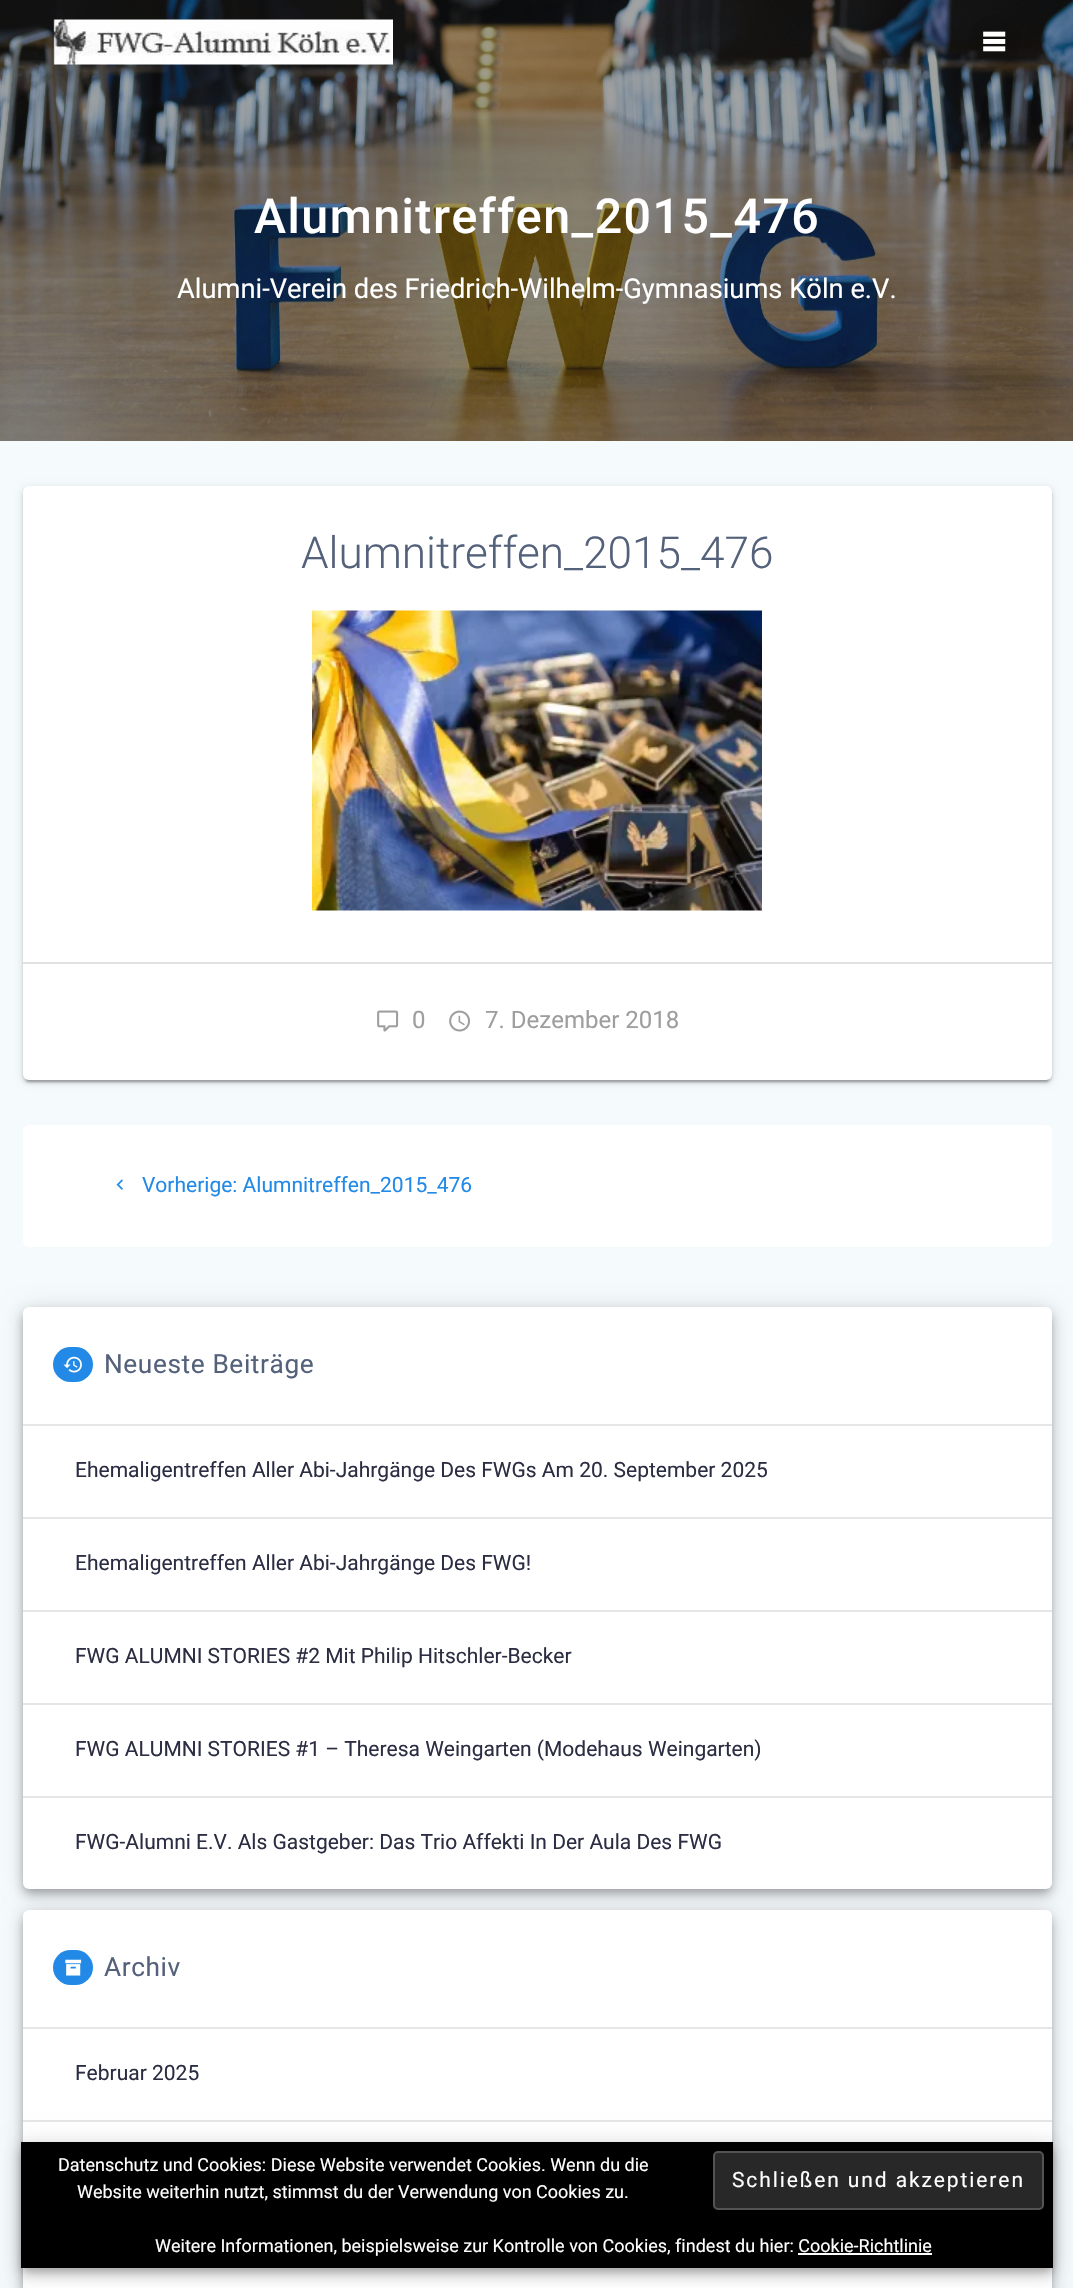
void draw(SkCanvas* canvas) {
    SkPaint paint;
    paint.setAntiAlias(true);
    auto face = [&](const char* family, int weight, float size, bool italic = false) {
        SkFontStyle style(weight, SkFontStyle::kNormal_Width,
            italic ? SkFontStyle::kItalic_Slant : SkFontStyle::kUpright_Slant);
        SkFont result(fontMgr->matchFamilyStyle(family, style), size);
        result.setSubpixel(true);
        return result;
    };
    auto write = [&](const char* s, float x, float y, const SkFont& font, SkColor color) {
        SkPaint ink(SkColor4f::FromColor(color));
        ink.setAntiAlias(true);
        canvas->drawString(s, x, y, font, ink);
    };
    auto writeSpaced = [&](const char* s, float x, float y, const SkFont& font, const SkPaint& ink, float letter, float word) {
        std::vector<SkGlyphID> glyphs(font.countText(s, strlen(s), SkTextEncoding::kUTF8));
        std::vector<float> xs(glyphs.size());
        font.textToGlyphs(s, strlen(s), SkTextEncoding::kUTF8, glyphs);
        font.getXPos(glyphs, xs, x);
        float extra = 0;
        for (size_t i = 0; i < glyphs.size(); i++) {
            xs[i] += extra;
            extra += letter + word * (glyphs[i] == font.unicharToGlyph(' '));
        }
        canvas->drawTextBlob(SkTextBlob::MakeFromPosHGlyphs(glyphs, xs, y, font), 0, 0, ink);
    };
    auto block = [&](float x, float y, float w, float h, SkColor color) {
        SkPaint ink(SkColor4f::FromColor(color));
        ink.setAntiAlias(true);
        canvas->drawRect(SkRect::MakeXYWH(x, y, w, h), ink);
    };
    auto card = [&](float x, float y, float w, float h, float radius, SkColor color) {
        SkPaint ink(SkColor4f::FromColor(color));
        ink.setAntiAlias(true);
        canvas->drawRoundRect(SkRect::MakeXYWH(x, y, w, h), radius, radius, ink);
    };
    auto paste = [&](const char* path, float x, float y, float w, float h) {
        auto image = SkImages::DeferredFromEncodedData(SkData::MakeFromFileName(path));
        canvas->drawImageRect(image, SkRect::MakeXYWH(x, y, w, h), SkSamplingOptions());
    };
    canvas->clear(SK_ColorWHITE);
    paste("pic3.png", 0, 0, 1073, 441);
    paste("pic1.png", 53, 19, 340, 46);
    card(968, 15, 52, 53, 26, SkColorSetARGB(26, 0, 0, 0));
    paste("pic2.png", 983, 31, 23, 21);
    auto kFont1 = face("Roboto", 500, 48.25f);
    paint.setColor(SK_ColorWHITE);
    writeSpaced("Alumnitreffen_2015_476", 254, 233, kFont1, paint, 1.5f, 0);
    auto kFont2 = face("Roboto", 400, 27.3f);
    write("Alumni-Verein des Friedrich-Wilhelm-Gymnasiums Köln e.V.", 177, 298, kFont2, SK_ColorWHITE);
    block(0, 441, 1073, 1847, SkColorSetRGB(245, 250, 253));
    paint.setColor(SkColorSetARGB(31, 0, 0, 0));
    paint.setMaskFilter(SkMaskFilter::MakeBlur(kNormal_SkBlurStyle, 4));
    canvas->drawRoundRect(SkRect::MakeXYWH(23, 488, 1029, 594), 6, 6, paint);
    paint.setMaskFilter(nullptr);
    paint.setColor(SkColorSetARGB(36, 0, 0, 0));
    paint.setMaskFilter(SkMaskFilter::MakeBlur(kNormal_SkBlurStyle, 1.5f));
    canvas->drawRoundRect(SkRect::MakeXYWH(23, 489, 1029, 594), 6, 6, paint);
    paint.setMaskFilter(nullptr);
    paint.setColor(SkColorSetARGB(51, 0, 0, 0));
    paint.setMaskFilter(SkMaskFilter::MakeBlur(kNormal_SkBlurStyle, 1));
    canvas->drawRoundRect(SkRect::MakeXYWH(26, 494, 1023, 588), 3, 3, paint);
    paint.setMaskFilter(nullptr);
    card(23, 486, 1029, 594, 6, SK_ColorWHITE);
    auto kFont3 = face("Roboto", 300, 44.1f);
    write("Alumnitreffen_2015_476", 301, 568, kFont3, SkColorSetRGB(84, 97, 122));
    paste("pic4.png", 312, 610, 450, 301);
    block(23, 962, 1029, 2, SkColorSetRGB(224, 225, 225));
    paste("pic5.png", 377, 1010, 22, 22);
    auto kFont4 = face("Roboto", 400, 24);
    write("0", 412, 1028, kFont4, SkColorSetRGB(158, 158, 158));
    paste("pic6.png", 449, 1010, 21, 22);
    write("7. Dezember 2018", 485, 1028, kFont4, SkColorSetRGB(158, 158, 158));
    card(23, 1125, 1029, 122, 6, SK_ColorWHITE);
    paste("pic7.png", 116, 1179, 7, 11);
    auto kFont5 = face("Roboto", 400, 21);
    write("Vorherige: Alumnitreffen_2015_476", 142, 1192, kFont5, SkColorSetRGB(34, 138, 230));
    paint.setColor(SkColorSetARGB(31, 0, 0, 0));
    paint.setMaskFilter(SkMaskFilter::MakeBlur(kNormal_SkBlurStyle, 10.5f));
    canvas->drawRoundRect(SkRect::MakeXYWH(23, 1308, 1029, 582), 6, 6, paint);
    paint.setMaskFilter(nullptr);
    paint.setColor(SkColorSetARGB(36, 0, 0, 0));
    paint.setMaskFilter(SkMaskFilter::MakeBlur(kNormal_SkBlurStyle, 6));
    canvas->drawRoundRect(SkRect::MakeXYWH(23, 1314, 1029, 582), 6, 6, paint);
    paint.setMaskFilter(nullptr);
    paint.setColor(SkColorSetARGB(51, 0, 0, 0));
    paint.setMaskFilter(SkMaskFilter::MakeBlur(kNormal_SkBlurStyle, 4));
    canvas->drawRoundRect(SkRect::MakeXYWH(24, 1313, 1026, 579), 5, 5, paint);
    paint.setMaskFilter(nullptr);
    card(23, 1307, 1029, 582, 6, SK_ColorWHITE);
    block(23, 1424, 1029, 2, SkColorSetRGB(230, 230, 230));
    card(53, 1347, 40, 35, 17.5f, SkColorSetRGB(34, 138, 230));
    paste("pic8.png", 63, 1356, 19, 17);
    auto kFont6 = face("Roboto", 400, 26.25f);
    paint.setColor(SkColorSetRGB(84, 97, 122));
    writeSpaced("Neueste Beiträge", 104, 1373, kFont6, paint, 0.6f, 0);
    write("Ehemaligentreffen Aller Abi-Jahrgänge Des FWGs Am 20. September 2025", 75, 1477, kFont5, SkColorSetRGB(43, 45, 66));
    block(23, 1517, 1029, 2, SkColorSetRGB(230, 230, 230));
    write("Ehemaligentreffen Aller Abi-Jahrgänge Des FWG!", 75, 1570, kFont5, SkColorSetRGB(43, 45, 66));
    block(23, 1610, 1029, 2, SkColorSetRGB(230, 230, 230));
    write("FWG ALUMNI STORIES #2 Mit Philip Hitschler-Becker", 75, 1663, kFont5, SkColorSetRGB(43, 45, 66));
    block(23, 1703, 1029, 2, SkColorSetRGB(230, 230, 230));
    write("FWG ALUMNI STORIES #1 – Theresa Weingarten (Modehaus Weingarten)", 75, 1756, kFont5, SkColorSetRGB(43, 45, 66));
    block(23, 1796, 1029, 2, SkColorSetRGB(230, 230, 230));
    write("FWG-Alumni E.V. Als Gastgeber: Das Trio Affekti In Der Aula Des FWG", 75, 1849, kFont5, SkColorSetRGB(43, 45, 66));
    paint.setColor(SkColorSetARGB(31, 0, 0, 0));
    paint.setMaskFilter(SkMaskFilter::MakeBlur(kNormal_SkBlurStyle, 10.5f));
    canvas->drawRoundRect(SkRect::MakeXYWH(23, 1911, 1029, 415), 6, 6, paint);
    paint.setMaskFilter(nullptr);
    paint.setColor(SkColorSetARGB(36, 0, 0, 0));
    paint.setMaskFilter(SkMaskFilter::MakeBlur(kNormal_SkBlurStyle, 6));
    canvas->drawRoundRect(SkRect::MakeXYWH(23, 1917, 1029, 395), 6, 6, paint);
    paint.setMaskFilter(nullptr);
    paint.setColor(SkColorSetARGB(51, 0, 0, 0));
    paint.setMaskFilter(SkMaskFilter::MakeBlur(kNormal_SkBlurStyle, 4));
    canvas->drawRoundRect(SkRect::MakeXYWH(24, 1916, 1026, 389), 5, 5, paint);
    paint.setMaskFilter(nullptr);
    card(23, 1910, 1029, 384, 6, SK_ColorWHITE);
    block(23, 2027, 1029, 2, SkColorSetRGB(230, 230, 230));
    card(53, 1950, 40, 35, 17.5f, SkColorSetRGB(34, 138, 230));
    paste("pic9.png", 65, 1959, 17, 17);
    paint.setColor(SkColorSetRGB(84, 97, 122));
    writeSpaced("Archiv", 104, 1976, kFont6, paint, 0.6f, 0);
    write("Februar 2025", 75, 2080, kFont5, SkColorSetRGB(43, 45, 66));
    block(23, 2120, 1029, 2, SkColorSetRGB(230, 230, 230));
    paint.setColor(SkColorSetARGB(31, 0, 0, 0));
    paint.setMaskFilter(SkMaskFilter::MakeBlur(kNormal_SkBlurStyle, 10.5f));
    canvas->drawRect(SkRect::MakeXYWH(21, 2144, 1032, 126), paint);
    paint.setMaskFilter(nullptr);
    paint.setColor(SkColorSetARGB(36, 0, 0, 0));
    paint.setMaskFilter(SkMaskFilter::MakeBlur(kNormal_SkBlurStyle, 6));
    canvas->drawRect(SkRect::MakeXYWH(21, 2150, 1032, 126), paint);
    paint.setMaskFilter(nullptr);
    paint.setColor(SkColorSetARGB(51, 0, 0, 0));
    paint.setMaskFilter(SkMaskFilter::MakeBlur(kNormal_SkBlurStyle, 4));
    canvas->drawRect(SkRect::MakeXYWH(23, 2148, 1029, 123), paint);
    paint.setMaskFilter(nullptr);
    block(21, 2142, 1032, 126, SK_ColorBLACK);
    auto kFont7 = face("Roboto", 400, 18);
    write("Datenschutz und Cookies: Diese Website verwendet Cookies. Wenn du die", 58, 2171, kFont7, SK_ColorWHITE);
    write("Website weiterhin nutzt, stimmst du der Verwendung von Cookies zu.", 77, 2198, kFont7, SK_ColorWHITE);
    paint.setColor(SkColorSetRGB(40, 40, 40));
    canvas->drawRoundRect(SkRect::MakeXYWH(714, 2152, 329, 57), 4, 4, paint);
    paint.setStyle(SkPaint::kStroke_Style);
    paint.setStrokeWidth(2);
    paint.setColor(SkColorSetRGB(83, 83, 83));
    canvas->drawRoundRect(SkRect::MakeXYWH(714, 2152, 329, 57), 4, 4, paint);
    paint.setStyle(SkPaint::kFill_Style);
    paint.setColor(SK_ColorWHITE);
    writeSpaced("Schließen und akzeptieren", 732, 2187, kFont5, paint, 1.9f, 0);
    write("Weitere Informationen, beispielsweise zur Kontrolle von Cookies, findest du hier: Cookie-Richtlinie", 155, 2252, kFont7, SK_ColorWHITE);
    block(798, 2253, 134, 2, SK_ColorWHITE);
}
